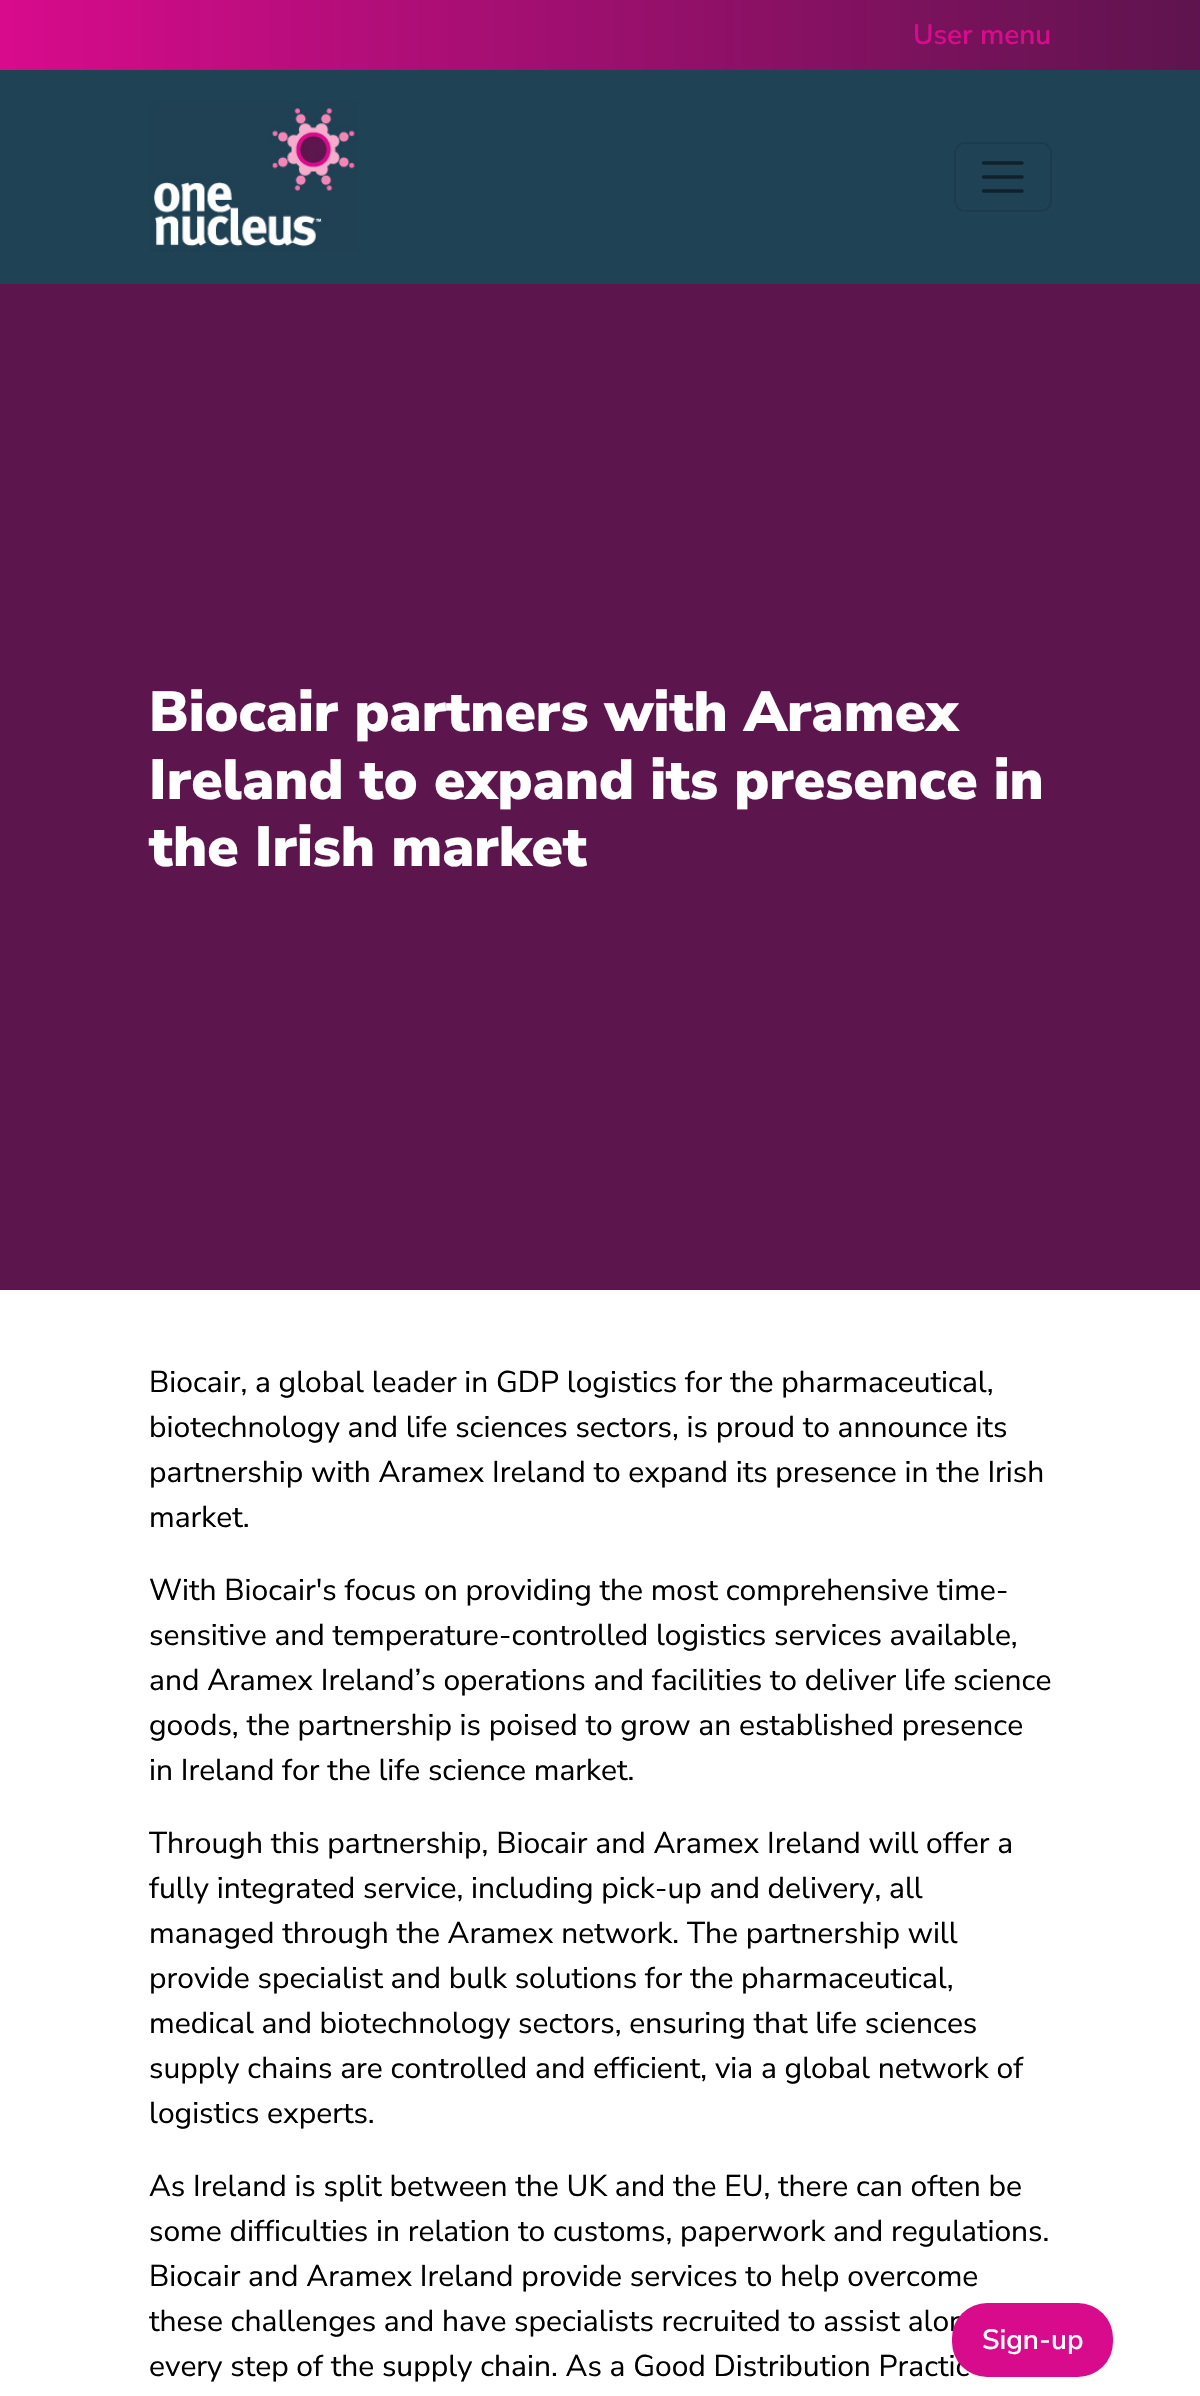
void draw(SkCanvas* canvas) {
    SkPaint paint;
    paint.setAntiAlias(true);
    auto face = [&](const char* family, int weight, float size, bool italic = false) {
        SkFontStyle style(weight, SkFontStyle::kNormal_Width,
            italic ? SkFontStyle::kItalic_Slant : SkFontStyle::kUpright_Slant);
        SkFont result(fontMgr->matchFamilyStyle(family, style), size);
        result.setSubpixel(true);
        return result;
    };
    auto write = [&](const char* s, float x, float y, const SkFont& font, SkColor color) {
        SkPaint ink(SkColor4f::FromColor(color));
        ink.setAntiAlias(true);
        canvas->drawString(s, x, y, font, ink);
    };
    auto block = [&](float x, float y, float w, float h, SkColor color) {
        SkPaint ink(SkColor4f::FromColor(color));
        ink.setAntiAlias(true);
        canvas->drawRect(SkRect::MakeXYWH(x, y, w, h), ink);
    };
    auto card = [&](float x, float y, float w, float h, float radius, SkColor color) {
        SkPaint ink(SkColor4f::FromColor(color));
        ink.setAntiAlias(true);
        canvas->drawRoundRect(SkRect::MakeXYWH(x, y, w, h), radius, radius, ink);
    };
    auto paste = [&](const char* path, float x, float y, float w, float h) {
        auto image = SkImages::DeferredFromEncodedData(SkData::MakeFromFileName(path));
        canvas->drawImageRect(image, SkRect::MakeXYWH(x, y, w, h), SkSamplingOptions());
    };
    canvas->clear(SK_ColorWHITE);
    {
        const SkColor colors[] = {SkColorSetRGB(216, 11, 140), SkColorSetRGB(94, 20, 78)};
        const float stops[] = {0, 1};
        const SkPoint ends[] = {{0, 35}, {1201, 35}};
        paint.setShader(SkGradientShader::MakeLinear(ends, colors, stops, 2, SkTileMode::kClamp));
        paint.setAlpha(255);
    }
    canvas->drawRect(SkRect::MakeXYWH(0, 0, 1200, 70), paint);
    auto kFont1 = face("Nunito Sans", 600, 28);
    write("User menu", 913, 44, kFont1, SkColorSetRGB(216, 11, 140));
    block(0, 70, 1200, 214, SkColorSetRGB(32, 66, 85));
    paste("pic1.png", 149, 101, 210, 151);
    paint.setStyle(SkPaint::kStroke_Style);
    paint.setStrokeWidth(2);
    paint.setShader(nullptr);
    paint.setColor(SkColorSetRGB(29, 59, 77));
    canvas->drawRoundRect(SkRect::MakeXYWH(955, 143, 96, 68), 10, 10, paint);
    paint.setStrokeWidth(3.5f);
    paint.setStrokeCap(SkPaint::kRound_Cap);
    paint.setColor(SkColorSetRGB(16, 33, 43));
    canvas->drawPath(SkPathBuilder().moveTo(983.5f, 163).lineTo(1022, 163).moveTo(983.5f, 177).lineTo(1022, 177).moveTo(983.5f, 191).lineTo(1022, 191).detach(), paint);
    block(0, 284, 1200, 1006, SkColorSetRGB(93, 21, 78));
    auto kFont2 = face("Nunito Sans", 900, 56.5f);
    write("Biocair partners with Aramex", 149, 731, kFont2, SK_ColorWHITE);
    write("Ireland to expand its presence in", 149, 799, kFont2, SK_ColorWHITE);
    write("the Irish market", 149, 866, kFont2, SK_ColorWHITE);
    auto kFont3 = face("Nunito Sans", 400, 30);
    write("Biocair, a global leader in GDP logistics for the pharmaceutical,", 149, 1392, kFont3, SK_ColorBLACK);
    write("biotechnology and life sciences sectors, is proud to announce its", 149, 1437, kFont3, SK_ColorBLACK);
    write("partnership with Aramex Ireland to expand its presence in the Irish", 149, 1482, kFont3, SK_ColorBLACK);
    write("market.", 149, 1527, kFont3, SK_ColorBLACK);
    write("With Biocair's focus on providing the most comprehensive time-", 149, 1600, kFont3, SK_ColorBLACK);
    write("sensitive and temperature-controlled logistics services available,", 149, 1645, kFont3, SK_ColorBLACK);
    write("and Aramex Ireland’s operations and facilities to deliver life science", 149, 1690, kFont3, SK_ColorBLACK);
    write("goods, the partnership is poised to grow an established presence", 149, 1735, kFont3, SK_ColorBLACK);
    write("in Ireland for the life science market.", 149, 1780, kFont3, SK_ColorBLACK);
    write("Through this partnership, Biocair and Aramex Ireland will offer a", 149, 1853, kFont3, SK_ColorBLACK);
    write("fully integrated service, including pick-up and delivery, all", 149, 1898, kFont3, SK_ColorBLACK);
    write("managed through the Aramex network. The partnership will", 149, 1943, kFont3, SK_ColorBLACK);
    write("provide specialist and bulk solutions for the pharmaceutical,", 149, 1988, kFont3, SK_ColorBLACK);
    write("medical and biotechnology sectors, ensuring that life sciences", 149, 2033, kFont3, SK_ColorBLACK);
    write("supply chains are controlled and efficient, via a global network of", 149, 2078, kFont3, SK_ColorBLACK);
    write("logistics experts.", 149, 2123, kFont3, SK_ColorBLACK);
    write("As Ireland is split between the UK and the EU, there can often be", 149, 2196, kFont3, SK_ColorBLACK);
    write("some difficulties in relation to customs, paperwork and regulations.", 149, 2241, kFont3, SK_ColorBLACK);
    write("Biocair and Aramex Ireland provide services to help overcome", 149, 2286, kFont3, SK_ColorBLACK);
    write("these challenges and have specialists recruited to assist alon", 149, 2331, kFont3, SK_ColorBLACK);
    write("every step of the supply chain. As a Good Distribution Practic", 149, 2376, kFont3, SK_ColorBLACK);
    card(952, 2303, 161, 74, 35, SkColorSetRGB(216, 11, 140));
    write("Sign-up", 982, 2349, kFont1, SK_ColorWHITE);
}
